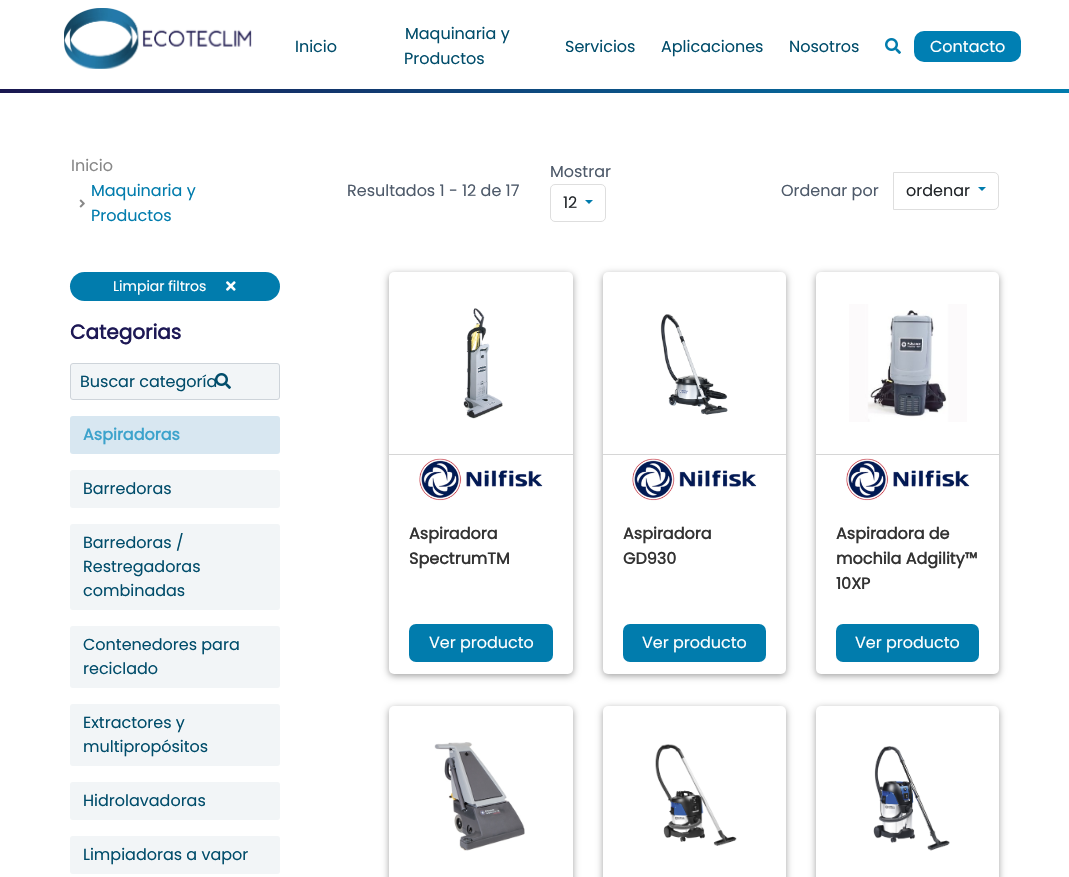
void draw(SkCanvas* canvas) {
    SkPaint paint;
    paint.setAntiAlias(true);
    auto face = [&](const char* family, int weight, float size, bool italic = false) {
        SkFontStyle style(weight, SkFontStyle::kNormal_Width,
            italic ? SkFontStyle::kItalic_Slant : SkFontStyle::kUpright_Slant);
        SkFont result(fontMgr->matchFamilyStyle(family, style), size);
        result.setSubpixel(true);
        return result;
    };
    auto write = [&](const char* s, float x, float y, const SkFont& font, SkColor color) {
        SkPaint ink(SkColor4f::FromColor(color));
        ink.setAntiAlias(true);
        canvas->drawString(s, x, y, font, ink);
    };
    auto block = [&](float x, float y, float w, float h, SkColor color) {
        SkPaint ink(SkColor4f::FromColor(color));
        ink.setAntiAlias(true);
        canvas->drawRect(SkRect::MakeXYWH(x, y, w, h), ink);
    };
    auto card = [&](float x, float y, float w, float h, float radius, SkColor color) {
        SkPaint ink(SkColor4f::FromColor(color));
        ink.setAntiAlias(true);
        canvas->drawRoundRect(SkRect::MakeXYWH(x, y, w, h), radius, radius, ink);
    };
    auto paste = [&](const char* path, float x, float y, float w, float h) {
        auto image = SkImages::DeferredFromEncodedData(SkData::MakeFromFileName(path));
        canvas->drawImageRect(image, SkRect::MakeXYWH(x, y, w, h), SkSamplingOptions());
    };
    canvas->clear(SK_ColorWHITE);
    paste("pic1.png", 64, 8, 188, 61);
    auto kFont1 = face("Poppins", 400, 16);
    write("Inicio", 295, 52, kFont1, SkColorSetRGB(1, 77, 107));
    write("Maquinaria y", 405, 39, kFont1, SkColorSetRGB(1, 77, 107));
    write("Productos", 404, 64, kFont1, SkColorSetRGB(1, 77, 107));
    write("Servicios", 565, 52, kFont1, SkColorSetRGB(1, 77, 107));
    write("Aplicaciones", 661, 52, kFont1, SkColorSetRGB(1, 77, 107));
    write("Nosotros", 789, 52, kFont1, SkColorSetRGB(1, 77, 107));
    paste("pic2.png", 885, 38, 16, 16);
    card(914, 31, 107, 31, 10, SkColorSetRGB(0, 127, 179));
    write("Contacto", 930, 52, kFont1, SK_ColorWHITE);
    {
        const SkColor colors[] = {SkColorSetRGB(26, 23, 80), SkColorSetRGB(1, 124, 173)};
        const float stops[] = {0, 1};
        const SkPoint ends[] = {{0, 91}, {1069, 91}};
        paint.setShader(SkGradientShader::MakeLinear(ends, colors, stops, 2, SkTileMode::kClamp));
        paint.setAlpha(255);
    }
    canvas->drawRect(SkRect::MakeXYWH(0, 89, 1069, 4), paint);
    write("Inicio", 71, 171, kFont1, SkColorSetRGB(136, 136, 136));
    paste("pic3.png", 79, 199, 6, 9);
    write("Maquinaria y", 91, 196, kFont1, SkColorSetRGB(1, 124, 173));
    write("Productos", 91, 221, kFont1, SkColorSetRGB(1, 124, 173));
    write("Resultados 1 - 12 de 17", 347, 196, kFont1, SkColorSetRGB(78, 90, 106));
    write("Mostrar", 550, 177, kFont1, SkColorSetRGB(78, 90, 106));
    paint.setStyle(SkPaint::kStroke_Style);
    paint.setStrokeWidth(1);
    paint.setShader(nullptr);
    paint.setColor(SkColorSetRGB(222, 222, 222));
    canvas->drawRoundRect(SkRect::MakeXYWH(550.5f, 184.5f, 55, 37), 4.5f, 4.5f, paint);
    write("12", 563, 208, kFont1, SkColorSetRGB(33, 37, 41));
    paint.setStyle(SkPaint::kFill_Style);
    paint.setColor(SkColorSetRGB(1, 124, 173));
    canvas->drawPath(SkPathBuilder().moveTo(585, 200).lineTo(593, 200).lineTo(589, 204).close().detach(), paint);
    write("Ordenar por", 781, 196, kFont1, SkColorSetRGB(78, 90, 106));
    paint.setStyle(SkPaint::kStroke_Style);
    paint.setColor(SkColorSetRGB(222, 222, 222));
    canvas->drawPath(SkPathBuilder().moveTo(893.5f, 172.5f).lineTo(994, 172.5f).cubicTo(996.5f, 172.5f, 998.5f, 174.5f, 998.5f, 177).lineTo(998.5f, 205).cubicTo(998.5f, 207.5f, 996.5f, 209.5f, 994, 209.5f).lineTo(893.5f, 209.5f).close().detach(), paint);
    write("ordenar", 906, 196, kFont1, SkColorSetRGB(33, 37, 41));
    paint.setStyle(SkPaint::kFill_Style);
    paint.setColor(SkColorSetRGB(1, 124, 173));
    canvas->drawPath(SkPathBuilder().moveTo(978, 187).lineTo(986, 187).lineTo(982, 191).close().detach(), paint);
    card(70, 272, 210, 29, 14.5f, SkColorSetRGB(1, 124, 173));
    auto kFont2 = face("Poppins", 400, 14);
    write("Limpiar filtros", 113, 291, kFont2, SK_ColorWHITE);
    paste("pic4.png", 226, 281, 10, 10);
    auto kFont3 = face("Poppins", 700, 20);
    write("Categorias", 70, 339, kFont3, SkColorSetRGB(29, 24, 85));
    paint.setColor(SkColorSetRGB(242, 245, 247));
    canvas->drawRoundRect(SkRect::MakeXYWH(70.5f, 363.5f, 209, 36), 2.5f, 2.5f, paint);
    paint.setStyle(SkPaint::kStroke_Style);
    paint.setColor(SkColorSetRGB(206, 212, 218));
    canvas->drawRoundRect(SkRect::MakeXYWH(70.5f, 363.5f, 209, 36), 2.5f, 2.5f, paint);
    write("Buscar categoría", 80, 387, kFont1, SkColorSetRGB(1, 77, 107));
    paste("pic5.png", 215, 373, 16, 16);
    card(70, 416, 210, 38, 3, SkColorSetRGB(216, 231, 241));
    auto kFont4 = face("Poppins", 700, 16);
    write("Aspiradoras", 83, 440, kFont4, SkColorSetRGB(61, 163, 204));
    card(70, 470, 210, 38, 3, SkColorSetRGB(242, 245, 247));
    write("Barredoras", 83, 494, kFont1, SkColorSetRGB(1, 77, 107));
    card(70, 524, 210, 86, 3, SkColorSetRGB(242, 245, 247));
    write("Barredoras /", 83, 548, kFont1, SkColorSetRGB(1, 77, 107));
    write("Restregadoras", 83, 572, kFont1, SkColorSetRGB(1, 77, 107));
    write("combinadas", 83, 596, kFont1, SkColorSetRGB(1, 77, 107));
    card(70, 626, 210, 62, 3, SkColorSetRGB(242, 245, 247));
    write("Contenedores para", 83, 650, kFont1, SkColorSetRGB(1, 77, 107));
    write("reciclado", 83, 674, kFont1, SkColorSetRGB(1, 77, 107));
    card(70, 704, 210, 62, 3, SkColorSetRGB(242, 245, 247));
    write("Extractores y", 83, 728, kFont1, SkColorSetRGB(1, 77, 107));
    write("multipropósitos", 83, 752, kFont1, SkColorSetRGB(1, 77, 107));
    card(70, 782, 210, 38, 3, SkColorSetRGB(242, 245, 247));
    write("Hidrolavadoras", 83, 806, kFont1, SkColorSetRGB(1, 77, 107));
    card(70, 836, 210, 38, 3, SkColorSetRGB(242, 245, 247));
    write("Limpiadoras a vapor", 83, 860, kFont1, SkColorSetRGB(1, 77, 107));
    paint.setStyle(SkPaint::kFill_Style);
    paint.setColor(SkColorSetARGB(94, 0, 0, 0));
    paint.setMaskFilter(SkMaskFilter::MakeBlur(kNormal_SkBlurStyle, 3.5f));
    canvas->drawRoundRect(SkRect::MakeXYWH(389, 274, 184, 402), 5, 5, paint);
    paint.setMaskFilter(nullptr);
    card(389, 272, 184, 402, 5, SK_ColorWHITE);
    paste("pic6.png", 463, 308, 40, 111);
    block(389, 454, 184, 1, SkColorSetRGB(214, 214, 214));
    paste("pic7.png", 419, 458, 124, 43);
    write("Aspiradora", 409, 539, kFont4, SkColorSetRGB(51, 51, 51));
    write("SpectrumTM", 409, 564, kFont4, SkColorSetRGB(51, 51, 51));
    card(409, 624, 144, 38, 7, SkColorSetRGB(1, 124, 173));
    write("Ver producto", 429, 648, kFont1, SK_ColorWHITE);
    paint.setMaskFilter(SkMaskFilter::MakeBlur(kNormal_SkBlurStyle, 3.5f));
    canvas->drawRoundRect(SkRect::MakeXYWH(603, 274, 183, 402), 5, 5, paint);
    paint.setMaskFilter(nullptr);
    card(603, 272, 183, 402, 5, SK_ColorWHITE);
    paste("pic8.png", 660, 314, 68, 101);
    block(603, 454, 183, 1, SkColorSetRGB(214, 214, 214));
    paste("pic9.png", 632, 458, 125, 43);
    write("Aspiradora", 623, 539, kFont4, SkColorSetRGB(51, 51, 51));
    write("GD930", 623, 564, kFont4, SkColorSetRGB(51, 51, 51));
    card(623, 624, 143, 38, 7, SkColorSetRGB(1, 124, 173));
    write("Ver producto", 642, 648, kFont1, SK_ColorWHITE);
    paint.setMaskFilter(SkMaskFilter::MakeBlur(kNormal_SkBlurStyle, 3.5f));
    canvas->drawRoundRect(SkRect::MakeXYWH(816, 274, 183, 402), 5, 5, paint);
    paint.setMaskFilter(nullptr);
    card(816, 272, 183, 402, 5, SK_ColorWHITE);
    paste("pic10.png", 849, 304, 118, 118);
    block(816, 454, 183, 1, SkColorSetRGB(214, 214, 214));
    paste("pic7.png", 846, 458, 124, 43);
    write("Aspiradora de", 836, 539, kFont4, SkColorSetRGB(51, 51, 51));
    write("mochila Adgility™", 836, 564, kFont4, SkColorSetRGB(51, 51, 51));
    write("10XP", 836, 589, kFont4, SkColorSetRGB(51, 51, 51));
    card(836, 624, 143, 38, 7, SkColorSetRGB(1, 124, 173));
    write("Ver producto", 855, 648, kFont1, SK_ColorWHITE);
    paint.setMaskFilter(SkMaskFilter::MakeBlur(kNormal_SkBlurStyle, 3.5f));
    canvas->drawRoundRect(SkRect::MakeXYWH(389, 708, 184, 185), 5, 5, paint);
    paint.setMaskFilter(nullptr);
    card(389, 706, 184, 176, 5, SK_ColorWHITE);
    paste("pic11.png", 434, 742, 91, 109);
    paint.setMaskFilter(SkMaskFilter::MakeBlur(kNormal_SkBlurStyle, 3.5f));
    canvas->drawRoundRect(SkRect::MakeXYWH(603, 708, 183, 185), 5, 5, paint);
    paint.setMaskFilter(nullptr);
    card(603, 706, 183, 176, 5, SK_ColorWHITE);
    paste("pic12.png", 655, 744, 82, 102);
    paint.setMaskFilter(SkMaskFilter::MakeBlur(kNormal_SkBlurStyle, 3.5f));
    canvas->drawRoundRect(SkRect::MakeXYWH(816, 708, 183, 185), 5, 5, paint);
    paint.setMaskFilter(nullptr);
    card(816, 706, 183, 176, 5, SK_ColorWHITE);
    paste("pic13.png", 873, 746, 77, 105);
}
